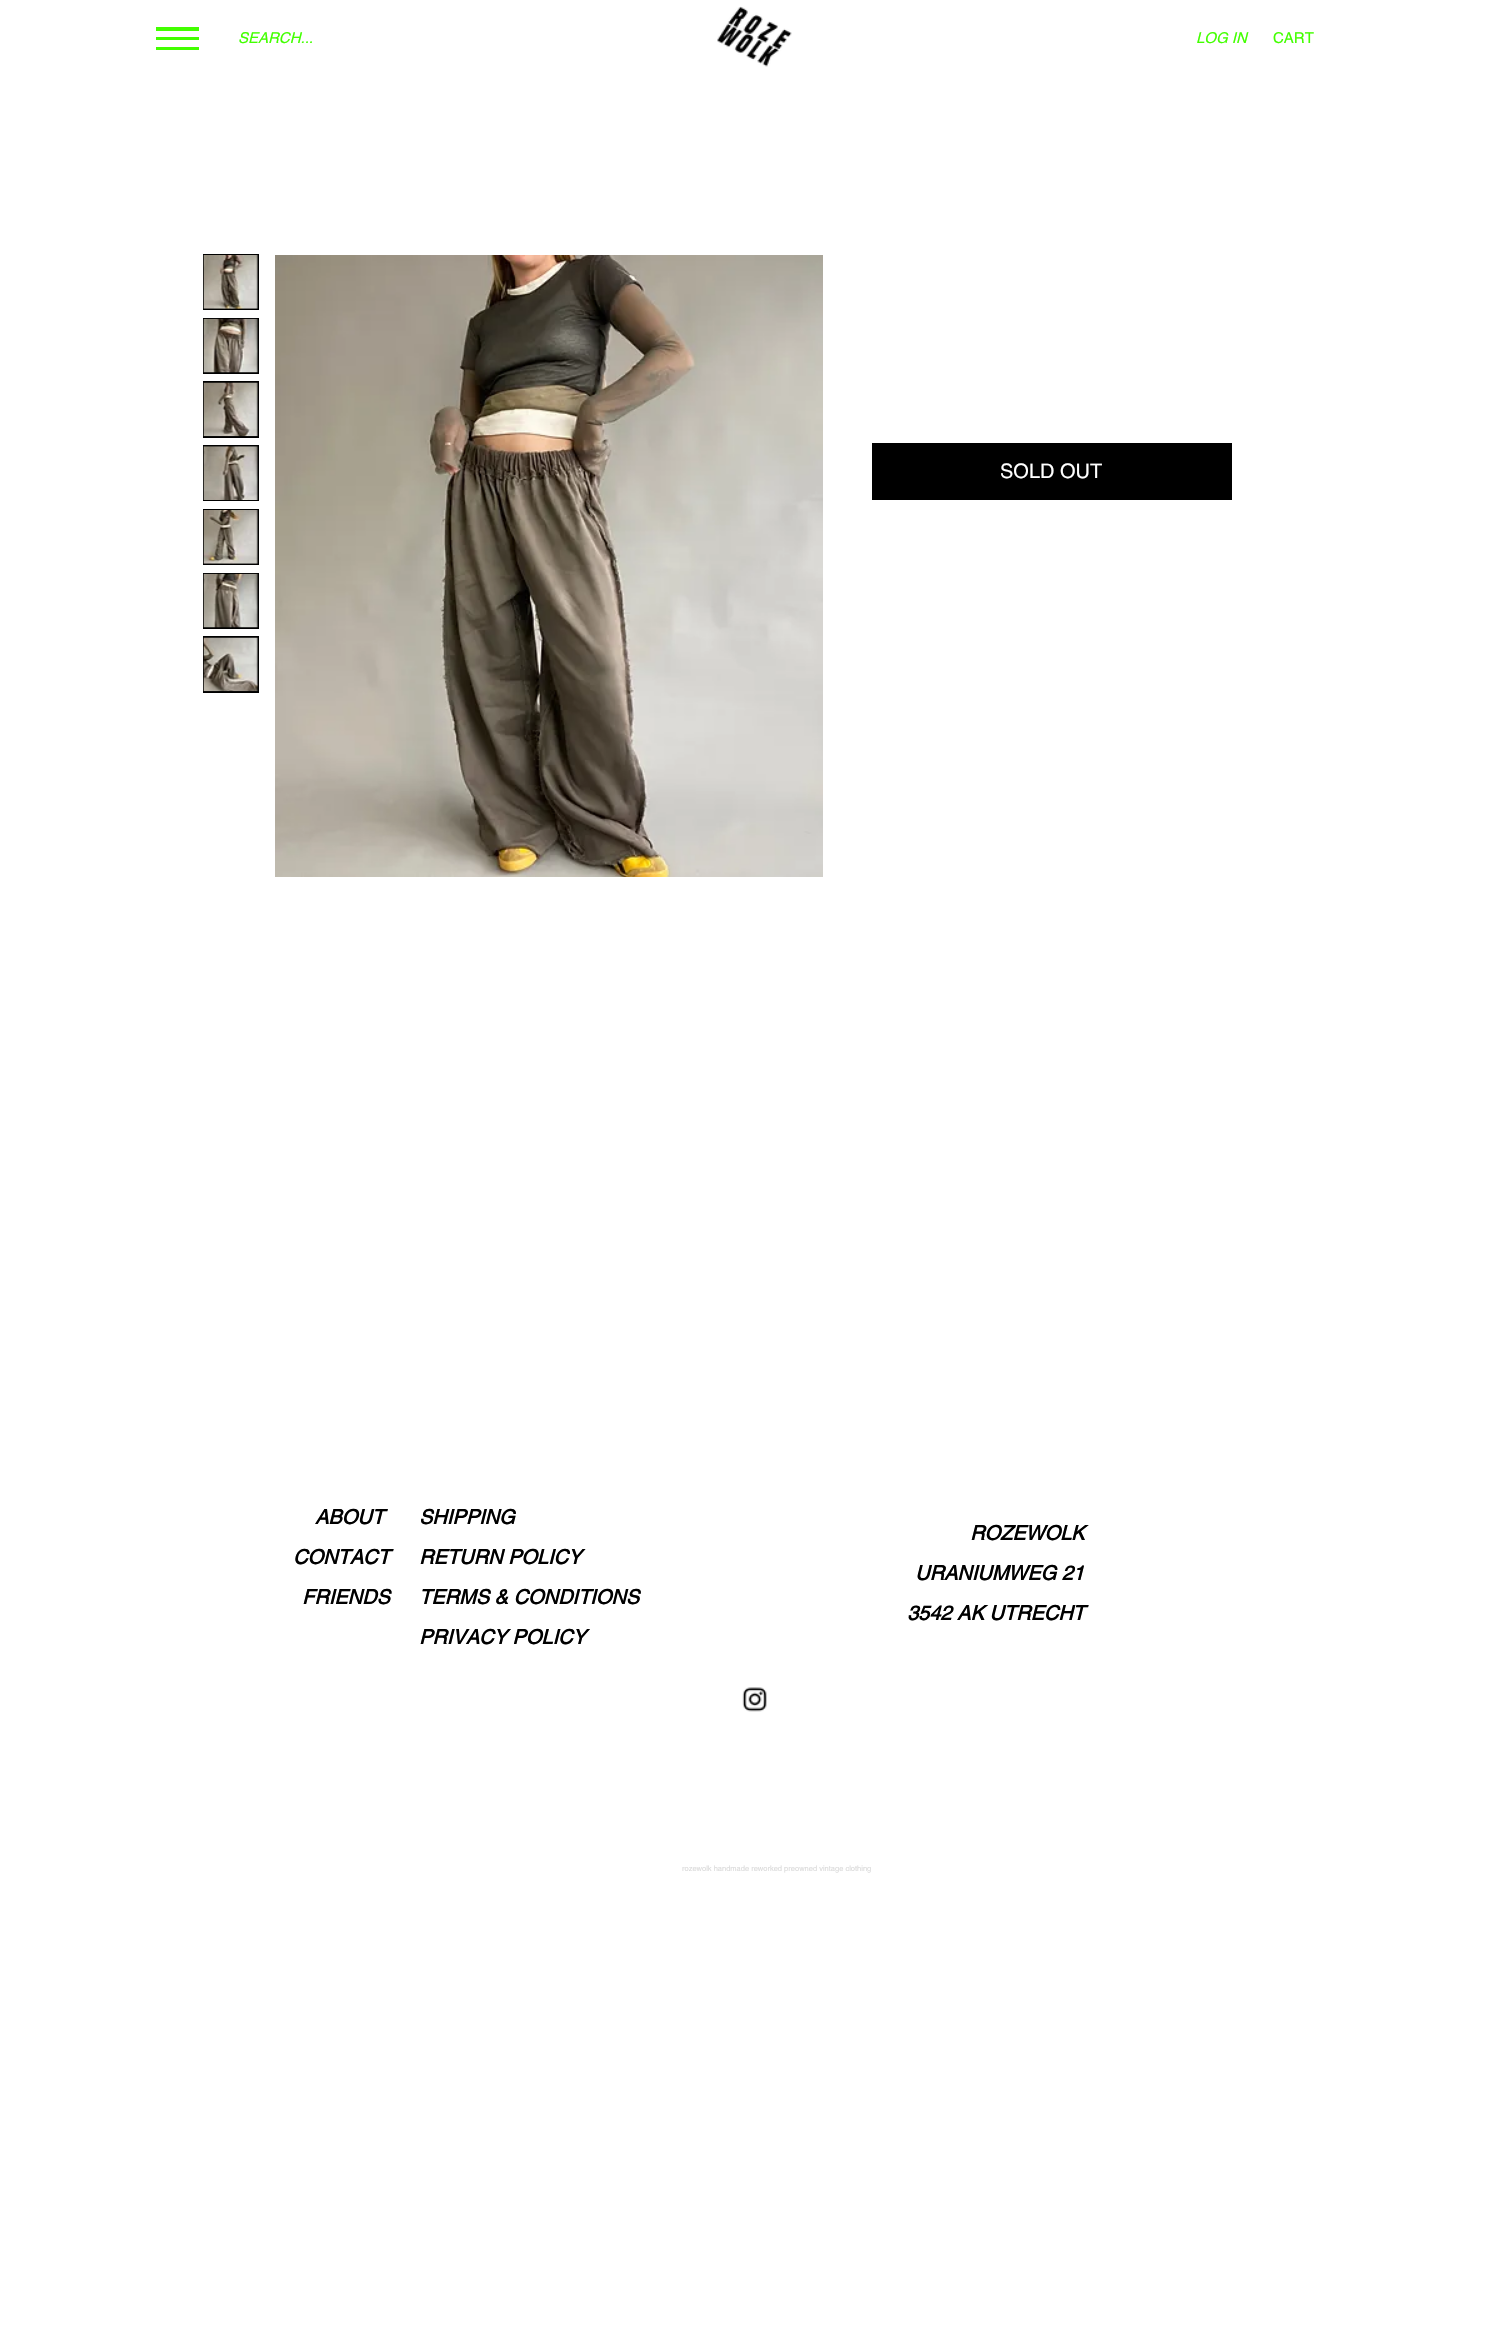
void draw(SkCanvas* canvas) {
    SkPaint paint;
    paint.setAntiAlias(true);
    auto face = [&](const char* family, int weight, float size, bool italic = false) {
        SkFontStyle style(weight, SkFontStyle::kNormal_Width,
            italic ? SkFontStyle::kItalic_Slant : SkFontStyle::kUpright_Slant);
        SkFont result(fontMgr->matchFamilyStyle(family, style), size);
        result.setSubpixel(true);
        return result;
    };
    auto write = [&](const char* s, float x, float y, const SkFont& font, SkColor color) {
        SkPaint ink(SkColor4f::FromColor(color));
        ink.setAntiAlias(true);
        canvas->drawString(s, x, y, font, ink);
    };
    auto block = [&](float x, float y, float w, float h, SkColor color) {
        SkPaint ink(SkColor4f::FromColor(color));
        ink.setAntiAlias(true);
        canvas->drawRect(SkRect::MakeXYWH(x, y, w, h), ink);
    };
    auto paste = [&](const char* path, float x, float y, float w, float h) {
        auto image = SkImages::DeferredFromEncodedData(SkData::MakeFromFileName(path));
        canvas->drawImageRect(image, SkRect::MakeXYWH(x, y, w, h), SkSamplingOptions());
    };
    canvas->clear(SK_ColorWHITE);
    paint.setColor(SkColorSetRGB(66, 255, 0));
    canvas->drawPath(SkPathBuilder().moveTo(199, 50).lineTo(156, 50).lineTo(156, 47).lineTo(199, 47).close().moveTo(199, 40).lineTo(156, 40).lineTo(156, 37).lineTo(199, 37).close().moveTo(199, 31).lineTo(156, 31).lineTo(156, 27).lineTo(199, 27).close().detach(), paint);
    auto kFont1 = face("helvetica", 400, 15, true);
    write("SEARCH...", 238, 43, kFont1, SkColorSetRGB(66, 255, 0));
    paste("pic1.png", 717, 6, 75, 61);
    write("LOG IN", 1196, 43, kFont1, SkColorSetRGB(66, 255, 0));
    auto kFont2 = face("helvetica", 400, 15);
    write("CART", 1273, 43, kFont2, SkColorSetRGB(66, 255, 0));
    block(203, 254, 56, 56, SK_ColorBLACK);
    paste("pic2.png", 203, 255, 55, 54);
    block(203, 318, 56, 56, SK_ColorBLACK);
    paste("pic3.png", 203, 318, 55, 55);
    block(203, 381, 56, 57, SK_ColorBLACK);
    paste("pic4.png", 203, 382, 55, 55);
    block(203, 445, 56, 56, SK_ColorBLACK);
    paste("pic5.png", 203, 446, 55, 54);
    block(203, 509, 56, 56, SK_ColorBLACK);
    paste("pic6.png", 203, 510, 55, 54);
    block(203, 573, 56, 56, SK_ColorBLACK);
    paste("pic7.png", 203, 573, 55, 55);
    block(203, 636, 56, 57, SK_ColorBLACK);
    paste("pic8.png", 203, 637, 55, 55);
    paste("pic9.png", 275, 255, 548, 622);
    block(872, 443, 360, 57, SK_ColorBLACK);
    auto kFont3 = face("helvetica", 400, 20);
    write("SOLD OUT", 1000, 478, kFont3, SK_ColorWHITE);
    auto kFont4 = face("helvetica", 700, 20, true);
    write("ABOUT", 315, 1524, kFont4, SK_ColorBLACK);
    write("CONTACT", 293, 1564, kFont4, SK_ColorBLACK);
    write("FRIENDS", 302, 1604, kFont4, SK_ColorBLACK);
    write("SHIPPING", 419, 1524, kFont4, SK_ColorBLACK);
    write("RETURN POLICY", 419, 1564, kFont4, SK_ColorBLACK);
    write("TERMS & CONDITIONS", 419, 1604, kFont4, SK_ColorBLACK);
    write("PRIVACY POLICY", 419, 1644, kFont4, SK_ColorBLACK);
    write("ROZEWOLK", 970, 1540, kFont4, SK_ColorBLACK);
    write("URANIUMWEG 21", 915, 1580, kFont4, SK_ColorBLACK);
    write("3542 AK UTRECHT", 907, 1620, kFont4, SK_ColorBLACK);
    paste("pic10.png", 742, 1687, 25, 25);
    auto kFont5 = face("helvetica", 400, 7.5f);
    write("rozewolk handmade reworked preowned vintage clothing", 682, 1871, kFont5, SkColorSetRGB(219, 219, 219));
}
